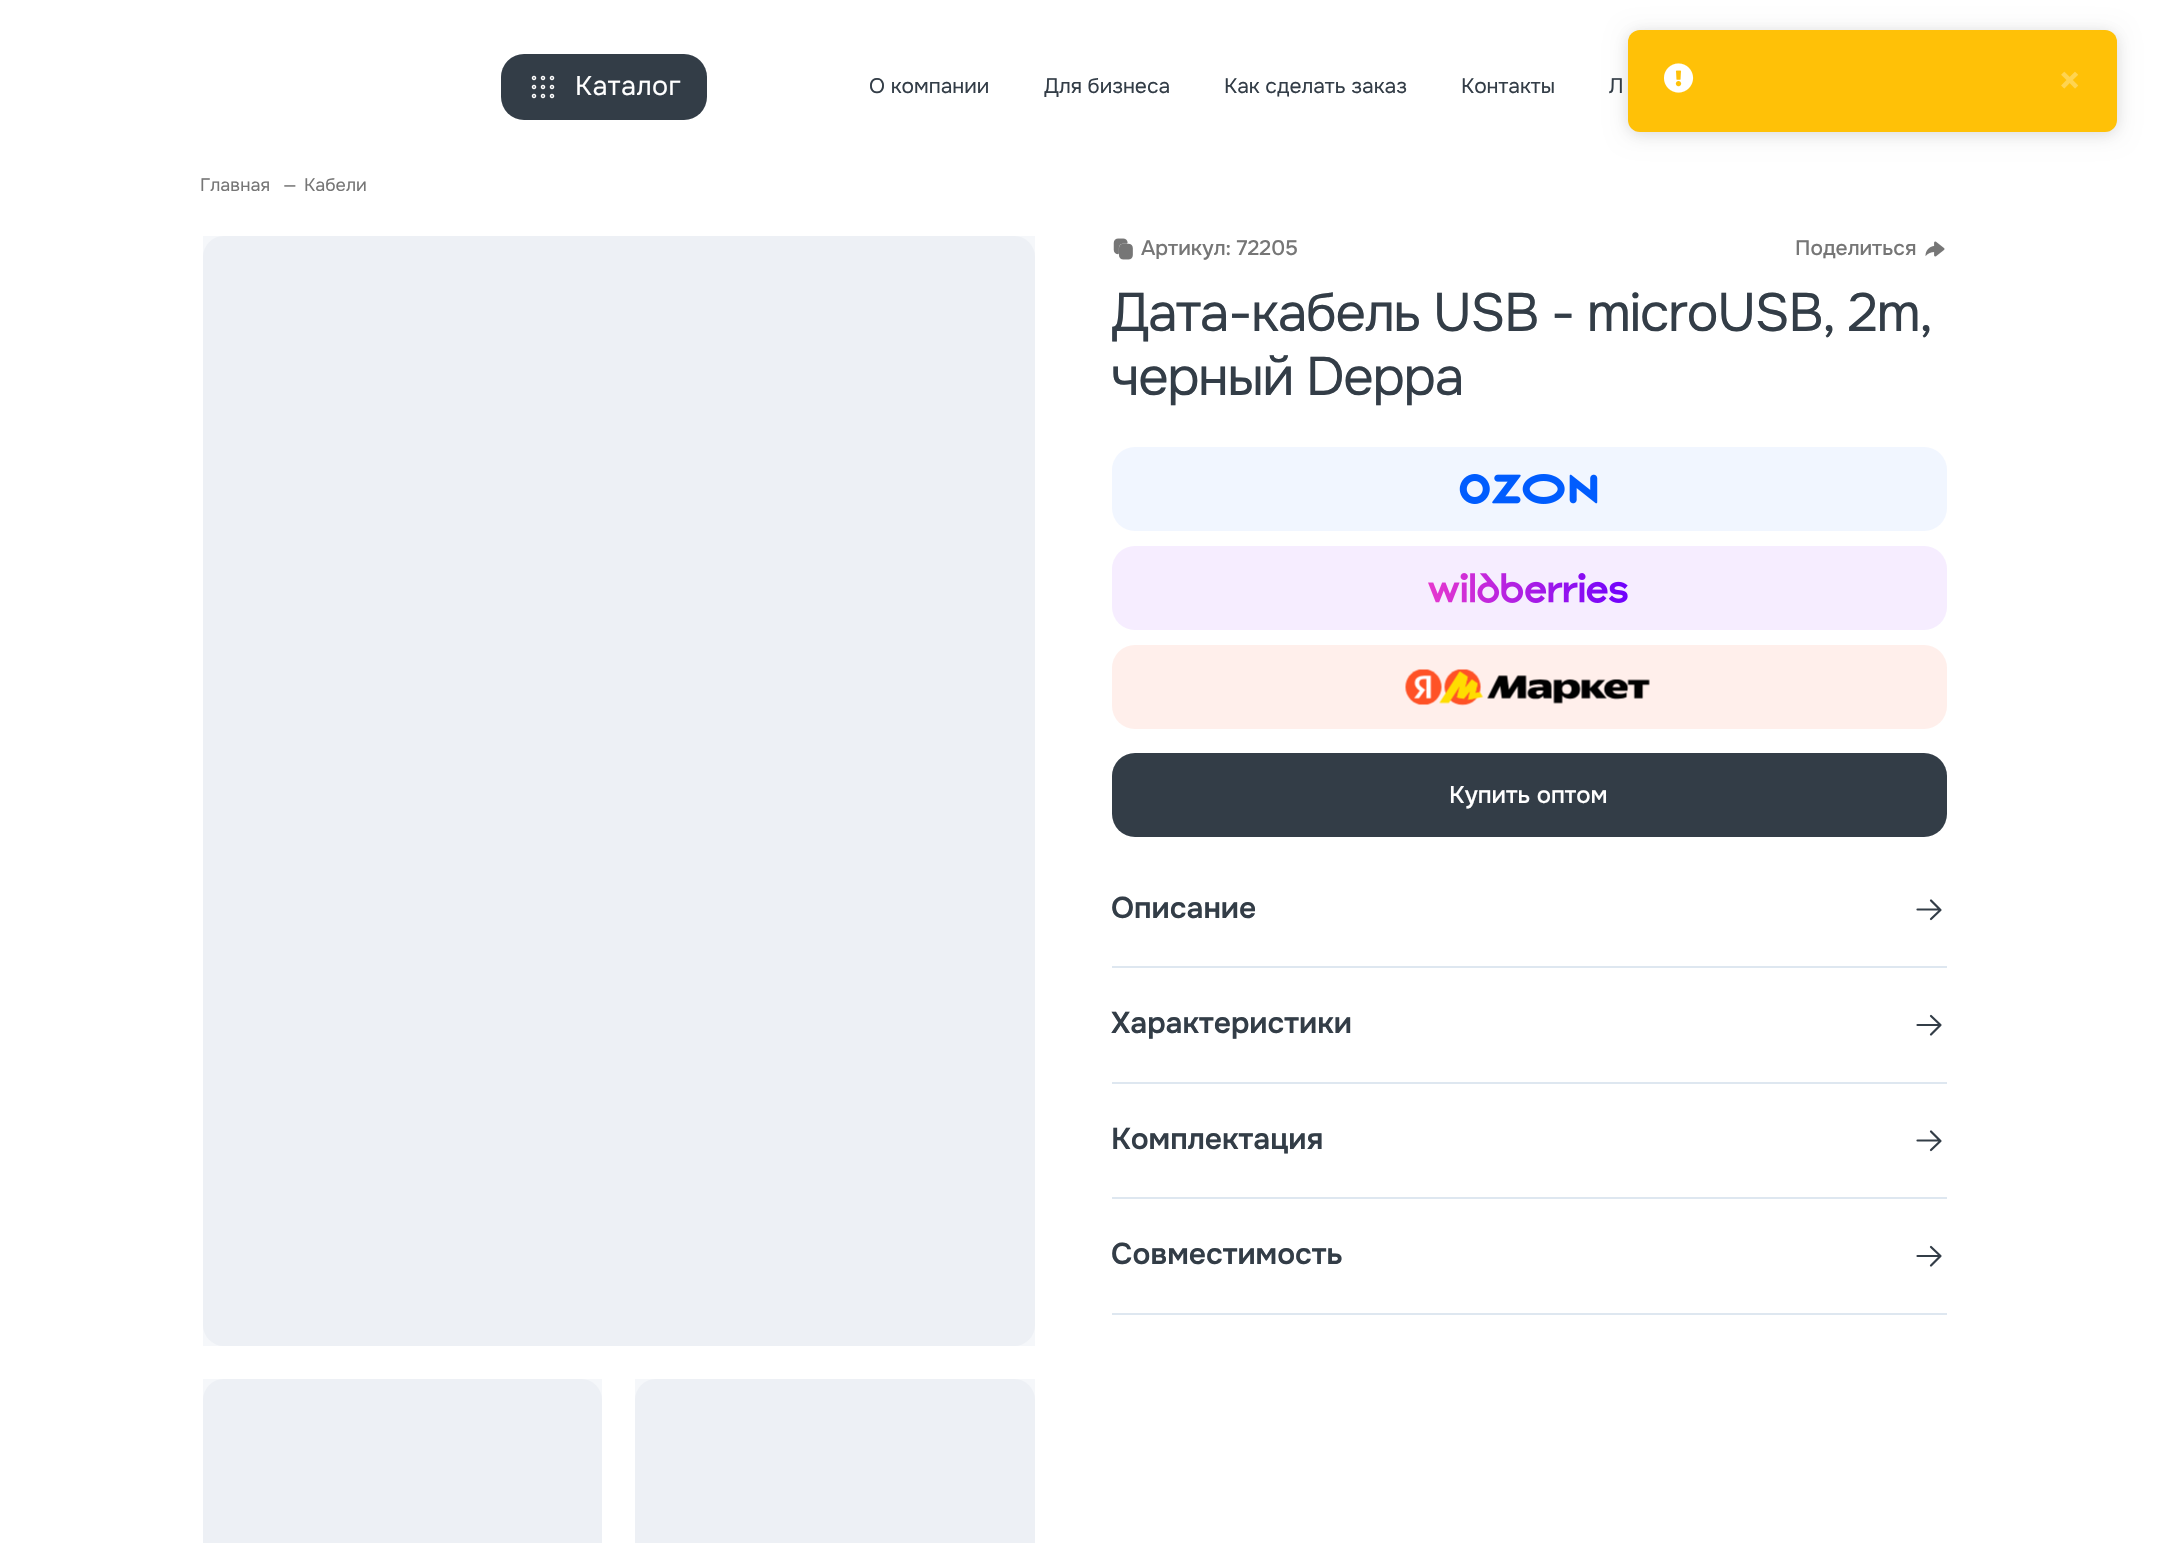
void draw(SkCanvas* canvas) {
    SkPaint paint;
    paint.setAntiAlias(true);
    auto face = [&](const char* family, int weight, float size, bool italic = false) {
        SkFontStyle style(weight, SkFontStyle::kNormal_Width,
            italic ? SkFontStyle::kItalic_Slant : SkFontStyle::kUpright_Slant);
        SkFont result(fontMgr->matchFamilyStyle(family, style), size);
        result.setSubpixel(true);
        return result;
    };
    auto write = [&](const char* s, float x, float y, const SkFont& font, SkColor color) {
        SkPaint ink(SkColor4f::FromColor(color));
        ink.setAntiAlias(true);
        canvas->drawString(s, x, y, font, ink);
    };
    auto writeSpaced = [&](const char* s, float x, float y, const SkFont& font, const SkPaint& ink, float letter, float word) {
        std::vector<SkGlyphID> glyphs(font.countText(s, strlen(s), SkTextEncoding::kUTF8));
        std::vector<float> xs(glyphs.size());
        font.textToGlyphs(s, strlen(s), SkTextEncoding::kUTF8, glyphs);
        font.getXPos(glyphs, xs, x);
        float extra = 0;
        for (size_t i = 0; i < glyphs.size(); i++) {
            xs[i] += extra;
            extra += letter + word * (glyphs[i] == font.unicharToGlyph(' '));
        }
        canvas->drawTextBlob(SkTextBlob::MakeFromPosHGlyphs(glyphs, xs, y, font), 0, 0, ink);
    };
    auto block = [&](float x, float y, float w, float h, SkColor color) {
        SkPaint ink(SkColor4f::FromColor(color));
        ink.setAntiAlias(true);
        canvas->drawRect(SkRect::MakeXYWH(x, y, w, h), ink);
    };
    auto card = [&](float x, float y, float w, float h, float radius, SkColor color) {
        SkPaint ink(SkColor4f::FromColor(color));
        ink.setAntiAlias(true);
        canvas->drawRoundRect(SkRect::MakeXYWH(x, y, w, h), radius, radius, ink);
    };
    auto paste = [&](const char* path, float x, float y, float w, float h) {
        auto image = SkImages::DeferredFromEncodedData(SkData::MakeFromFileName(path));
        canvas->drawImageRect(image, SkRect::MakeXYWH(x, y, w, h), SkSamplingOptions());
    };
    canvas->clear(SK_ColorWHITE);
    card(501, 54, 206, 66, 23, SkColorSetRGB(51, 61, 71));
    paste("pic1.png", 531, 75, 24, 24);
    auto kFont1 = face("Onest", 400, 27);
    paint.setColor(SK_ColorWHITE);
    writeSpaced("Каталог", 575, 95, kFont1, paint, 0.5f, 0);
    auto kFont2 = face("Onest", 400, 21);
    write("О компании", 869, 93, kFont2, SkColorSetRGB(51, 61, 71));
    write("Для бизнеса", 1044, 93, kFont2, SkColorSetRGB(51, 61, 71));
    write("Как сделать заказ", 1224, 93, kFont2, SkColorSetRGB(51, 61, 71));
    write("Контакты", 1461, 93, kFont2, SkColorSetRGB(51, 61, 71));
    write("Л", 1609, 93, kFont2, SkColorSetRGB(51, 61, 71));
    auto kFont3 = face("Onest", 400, 18);
    write("Главная", 200, 191, kFont3, SkColorSetRGB(118, 118, 118));
    write("—", 283, 191, kFont3, SkColorSetRGB(118, 118, 118));
    write("Кабели", 304, 191, kFont3, SkColorSetRGB(118, 118, 118));
    card(203, 236, 832, 1110, 21, SkColorSetRGB(247, 248, 250));
    block(203, 236, 832, 1110, SkColorSetARGB(10, 0, 48, 120));
    card(203, 1379, 399, 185, 21, SkColorSetRGB(247, 248, 250));
    block(203, 1379, 399, 164, SkColorSetARGB(10, 0, 48, 120));
    card(635, 1379, 400, 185, 21, SkColorSetRGB(247, 248, 250));
    block(635, 1379, 400, 164, SkColorSetARGB(10, 0, 48, 120));
    paste("pic2.png", 1113, 238, 20, 22);
    auto kFont4 = face("Onest", 500, 21);
    write("Артикул: 72205", 1141, 255, kFont4, SkColorSetRGB(118, 118, 118));
    write("Поделиться", 1795, 255, kFont4, SkColorSetRGB(118, 118, 118));
    paste("pic3.png", 1925, 241, 20, 16);
    auto kFont5 = face("Onest", 400, 54);
    paint.setColor(SkColorSetRGB(51, 61, 71));
    writeSpaced("Дата-кабель USB - microUSB, 2m,", 1111, 331, kFont5, paint, -1.6f, 0);
    writeSpaced("черный Deppa", 1111, 395, kFont5, paint, -1.6f, 0);
    card(1112, 447, 835, 84, 23, SkColorSetRGB(241, 246, 255));
    paste("pic4.png", 1459, 474, 139, 30);
    card(1112, 546, 835, 84, 23, SkColorSetRGB(246, 237, 255));
    paste("pic5.png", 1428, 573, 200, 30);
    card(1112, 645, 835, 84, 23, SkColorSetRGB(255, 239, 235));
    paste("pic6.png", 1405, 669, 245, 37);
    card(1112, 753, 835, 84, 23, SkColorSetRGB(51, 61, 71));
    auto kFont6 = face("Onest", 500, 24);
    write("Купить оптом", 1449, 803, kFont6, SK_ColorWHITE);
    block(1112, 966, 835, 2, SkColorSetRGB(222, 231, 240));
    auto kFont7 = face("Onest", 600, 30);
    write("Описание", 1111, 918, kFont7, SkColorSetRGB(51, 61, 71));
    paint.setStyle(SkPaint::kStroke_Style);
    paint.setStrokeWidth(2.2f);
    paint.setStrokeCap(SkPaint::kRound_Cap);
    paint.setStrokeJoin(SkPaint::kRound_Join);
    canvas->drawPath(SkPathBuilder().moveTo(1917.5f, 909.5f).lineTo(1940, 909.5f).moveTo(1931, 900.5f).lineTo(1940.5f, 910).lineTo(1931, 919).detach(), paint);
    block(1112, 1082, 835, 2, SkColorSetRGB(222, 231, 240));
    write("Характеристики", 1111, 1033, kFont7, SkColorSetRGB(51, 61, 71));
    canvas->drawPath(SkPathBuilder().moveTo(1917.5f, 1025).lineTo(1940, 1025).moveTo(1931, 1016).lineTo(1940.5f, 1025).lineTo(1931, 1034.5f).detach(), paint);
    block(1112, 1197, 835, 2, SkColorSetRGB(222, 231, 240));
    write("Комплектация", 1111, 1149, kFont7, SkColorSetRGB(51, 61, 71));
    canvas->drawPath(SkPathBuilder().moveTo(1917.5f, 1140.5f).lineTo(1940, 1140.5f).moveTo(1931, 1131.5f).lineTo(1940.5f, 1141).lineTo(1931, 1150).detach(), paint);
    block(1112, 1313, 835, 2, SkColorSetRGB(222, 231, 240));
    write("Совместимость", 1111, 1264, kFont7, SkColorSetRGB(51, 61, 71));
    canvas->drawPath(SkPathBuilder().moveTo(1917.5f, 1256).lineTo(1940, 1256).moveTo(1931, 1247).lineTo(1940.5f, 1256).lineTo(1931, 1265.5f).detach(), paint);
    paint.setStyle(SkPaint::kFill_Style);
    paint.setColor(SkColorSetARGB(13, 0, 0, 0));
    paint.setMaskFilter(SkMaskFilter::MakeBlur(kNormal_SkBlurStyle, 11));
    canvas->drawRoundRect(SkRect::MakeXYWH(1628, 33, 489, 102), 12, 12, paint);
    paint.setMaskFilter(nullptr);
    paint.setColor(SkColorSetARGB(26, 0, 0, 0));
    paint.setMaskFilter(SkMaskFilter::MakeBlur(kNormal_SkBlurStyle, 7.5f));
    canvas->drawRoundRect(SkRect::MakeXYWH(1628, 32, 489, 102), 12, 12, paint);
    paint.setMaskFilter(nullptr);
    card(1628, 30, 489, 102, 12, SkColorSetRGB(255, 193, 7));
    paste("pic7.png", 1664, 63, 30, 30);
    auto kFont8 = face("Onest", 700, 36);
    write("×", 2059, 93, kFont8, SkColorSetRGB(255, 212, 81));
}
